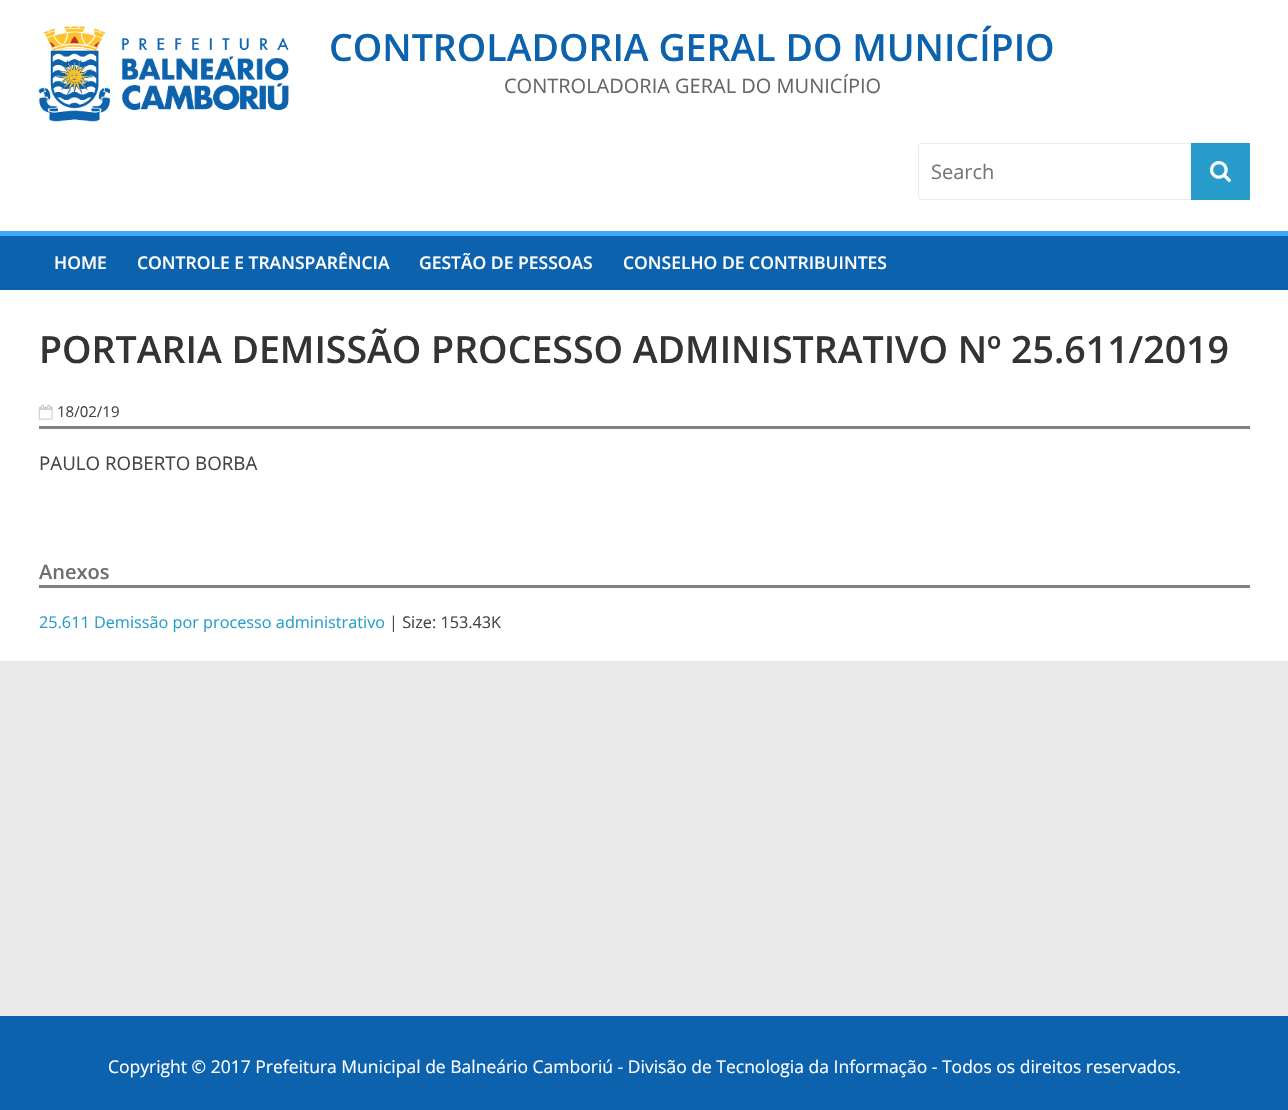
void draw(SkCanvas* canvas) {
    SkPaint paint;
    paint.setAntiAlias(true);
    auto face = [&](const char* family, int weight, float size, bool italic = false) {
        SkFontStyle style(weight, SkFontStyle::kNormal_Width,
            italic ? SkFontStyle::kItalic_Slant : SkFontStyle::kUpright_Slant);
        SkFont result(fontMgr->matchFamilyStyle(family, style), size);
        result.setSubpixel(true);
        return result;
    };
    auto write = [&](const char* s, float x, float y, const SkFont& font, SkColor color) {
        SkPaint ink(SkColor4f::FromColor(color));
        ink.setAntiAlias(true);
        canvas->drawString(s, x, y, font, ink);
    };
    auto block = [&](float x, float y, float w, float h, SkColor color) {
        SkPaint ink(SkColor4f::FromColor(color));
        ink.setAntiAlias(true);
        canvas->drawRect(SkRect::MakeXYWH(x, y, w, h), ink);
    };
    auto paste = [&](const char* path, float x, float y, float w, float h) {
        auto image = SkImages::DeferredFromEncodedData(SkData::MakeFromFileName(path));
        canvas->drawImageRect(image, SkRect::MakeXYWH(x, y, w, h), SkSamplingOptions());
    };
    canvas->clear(SkColorSetRGB(234, 234, 234));
    block(0, 0, 1288, 231, SK_ColorWHITE);
    paste("pic1.png", 38, 26, 251, 96);
    auto kFont1 = face("Open Sans", 600, 37.5f);
    write("CONTROLADORIA GERAL DO MUNICÍPIO", 329, 61, kFont1, SkColorSetRGB(13, 98, 173));
    auto kFont2 = face("Open Sans", 400, 20);
    write("CONTROLADORIA GERAL DO MUNICÍPIO", 504, 93, kFont2, SkColorSetRGB(102, 102, 102));
    paint.setStyle(SkPaint::kStroke_Style);
    paint.setStrokeWidth(1);
    paint.setColor(SkColorSetRGB(234, 234, 234));
    canvas->drawRoundRect(SkRect::MakeXYWH(918.5f, 143.5f, 331, 56), 3.5f, 3.5f, paint);
    write("Search", 931, 179, kFont2, SkColorSetRGB(117, 117, 117));
    block(1191, 143, 59, 57, SkColorSetRGB(40, 157, 204));
    paste("pic2.png", 1210, 161, 21, 21);
    block(0, 236, 1288, 54, SkColorSetRGB(13, 98, 173));
    block(0, 231, 1288, 5, SkColorSetRGB(60, 168, 250));
    auto kFont3 = face("Open Sans", 600, 17.5f);
    write("HOME", 54, 269, kFont3, SK_ColorWHITE);
    write("CONTROLE E TRANSPARÊNCIA", 137, 269, kFont3, SK_ColorWHITE);
    write("GESTÃO DE PESSOAS", 419, 269, kFont3, SK_ColorWHITE);
    write("CONSELHO DE CONTRIBUINTES", 623, 269, kFont3, SK_ColorWHITE);
    block(0, 290, 1288, 371, SK_ColorWHITE);
    write("PORTARIA DEMISSÃO PROCESSO ADMINISTRATIVO Nº 25.611/2019", 39, 363, kFont1, SkColorSetRGB(51, 51, 51));
    paste("pic3.png", 38, 404, 15, 16);
    auto kFont4 = face("Open Sans", 400, 15);
    write("18/02/19", 57, 417, kFont4, SkColorSetRGB(68, 68, 68));
    block(39, 426, 1211, 3, SkColorSetRGB(128, 128, 128));
    auto kFont5 = face("Open Sans", 400, 18.75f);
    write("PAULO ROBERTO BORBA", 39, 470, kFont5, SkColorSetRGB(68, 68, 68));
    auto kFont6 = face("Open Sans", 600, 20);
    write("Anexos", 39, 579, kFont6, SkColorSetRGB(110, 110, 110));
    block(39, 585, 1211, 3, SkColorSetRGB(128, 128, 128));
    auto kFont7 = face("Open Sans", 400, 16.25f);
    write("25.611 Demissão por processo administrativo", 39, 628, kFont7, SkColorSetRGB(40, 157, 204));
    write("| Size: 153.43K", 389, 628, kFont7, SkColorSetRGB(68, 68, 68));
    block(0, 1016, 1288, 94, SkColorSetRGB(13, 98, 173));
    auto kFont8 = face("Open Sans", 400, 17.5f);
    write("Copyright © 2017 Prefeitura Municipal de Balneário Camboriú - Divisão de Tecnologia da Informação - Todos os direitos reservados.", 108, 1073, kFont8, SK_ColorWHITE);
}
